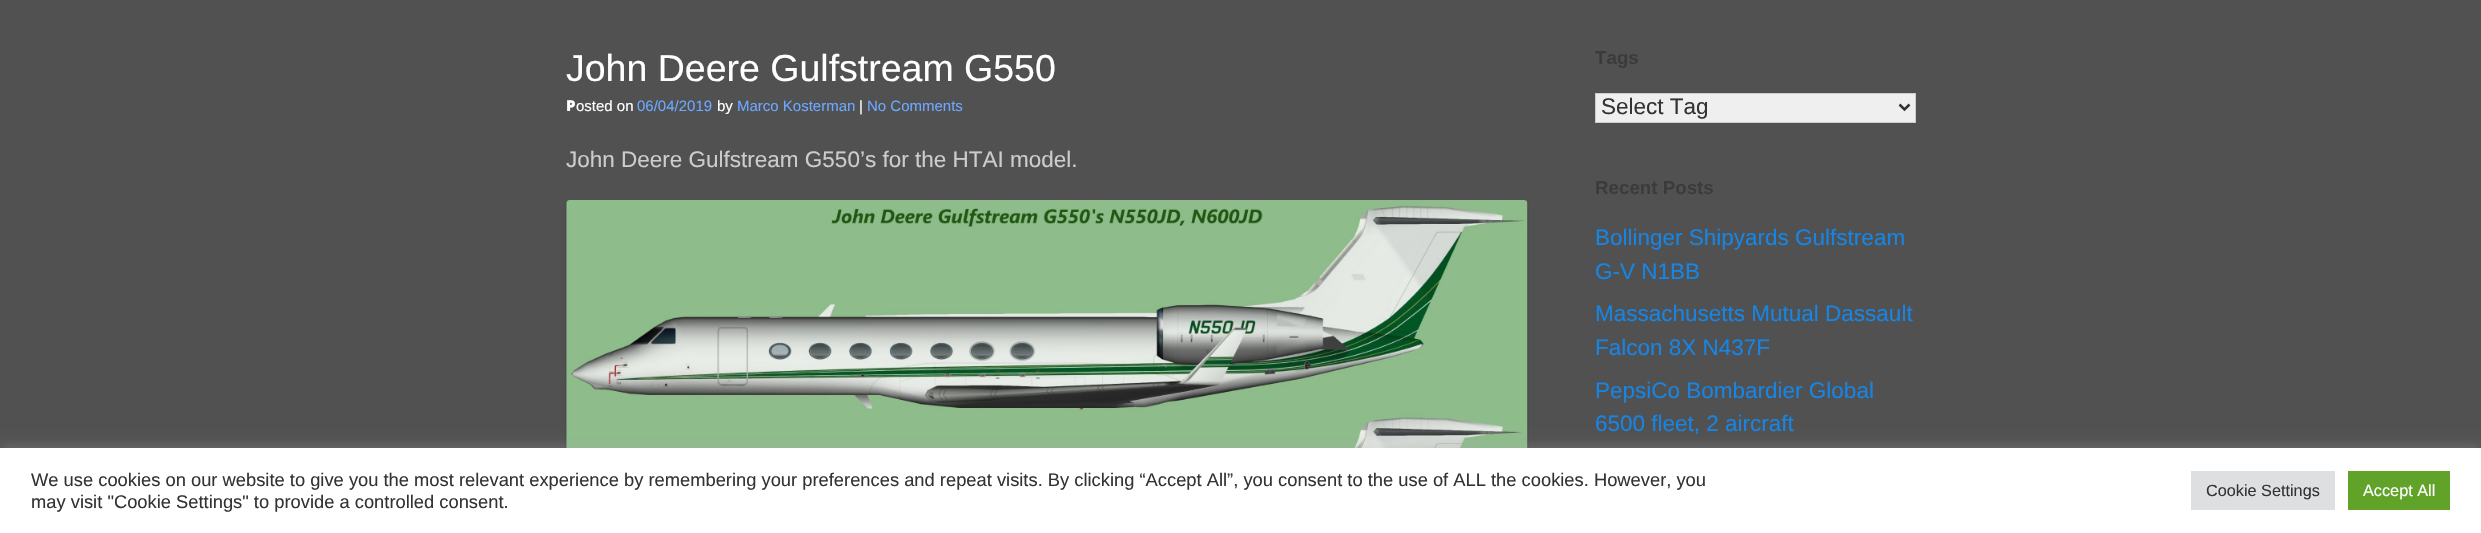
void draw(SkCanvas* canvas) {
    SkPaint paint;
    paint.setAntiAlias(true);
    auto face = [&](const char* family, int weight, float size, bool italic = false) {
        SkFontStyle style(weight, SkFontStyle::kNormal_Width,
            italic ? SkFontStyle::kItalic_Slant : SkFontStyle::kUpright_Slant);
        SkFont result(fontMgr->matchFamilyStyle(family, style), size);
        result.setSubpixel(true);
        return result;
    };
    auto write = [&](const char* s, float x, float y, const SkFont& font, SkColor color) {
        SkPaint ink(SkColor4f::FromColor(color));
        ink.setAntiAlias(true);
        canvas->drawString(s, x, y, font, ink);
    };
    auto block = [&](float x, float y, float w, float h, SkColor color) {
        SkPaint ink(SkColor4f::FromColor(color));
        ink.setAntiAlias(true);
        canvas->drawRect(SkRect::MakeXYWH(x, y, w, h), ink);
    };
    auto paste = [&](const char* path, float x, float y, float w, float h) {
        auto image = SkImages::DeferredFromEncodedData(SkData::MakeFromFileName(path));
        canvas->drawImageRect(image, SkRect::MakeXYWH(x, y, w, h), SkSamplingOptions());
    };
    canvas->clear(SkColorSetRGB(81, 81, 81));
    auto kFont1 = face("Liberation Sans", 400, 37.5f);
    write("John Deere Gulfstream G550", 566, 81, kFont1, SK_ColorWHITE);
    auto kFont2 = face("Noto Sans", 900, 15);
    write("P", 566, 111, kFont2, SK_ColorWHITE);
    auto kFont3 = face("Liberation Sans", 400, 15);
    write("osted on", 576, 111, kFont3, SK_ColorWHITE);
    write("06/04/2019", 637, 111, kFont3, SkColorSetRGB(109, 167, 255));
    write("by", 717, 111, kFont3, SK_ColorWHITE);
    write("Marco Kosterman", 737, 111, kFont3, SkColorSetRGB(109, 167, 255));
    write("|", 859, 111, kFont3, SK_ColorWHITE);
    write("No Comments", 867, 111, kFont3, SkColorSetRGB(109, 167, 255));
    auto kFont4 = face("Liberation Sans", 400, 22.5f);
    write("John Deere Gulfstream G550’s for the HTAI model.", 566, 167, kFont4, SkColorSetRGB(204, 204, 204));
    paint.setColor(SkColorSetARGB(46, 0, 0, 0));
    paint.setMaskFilter(SkMaskFilter::MakeBlur(kNormal_SkBlurStyle, 1));
    canvas->drawRoundRect(SkRect::MakeXYWH(566, 201, 962, 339), 4, 4, paint);
    paint.setMaskFilter(nullptr);
    paste("pic1.png", 566, 200, 962, 248);
    auto kFont5 = face("Liberation Sans", 700, 18.75f);
    write("Tags", 1595, 64, kFont5, SkColorSetRGB(59, 59, 59));
    paint.setColor(SkColorSetRGB(239, 239, 239));
    canvas->drawRect(SkRect::MakeXYWH(1595.5f, 93.5f, 320, 29), paint);
    paint.setStyle(SkPaint::kStroke_Style);
    paint.setStrokeWidth(1);
    paint.setColor(SkColorSetRGB(204, 204, 204));
    canvas->drawRect(SkRect::MakeXYWH(1595.5f, 93.5f, 320, 29), paint);
    paint.setStrokeWidth(2.5f);
    paint.setColor(SkColorSetRGB(51, 51, 51));
    canvas->drawPath(SkPathBuilder().moveTo(1899.5f, 104.5f).lineTo(1904.5f, 109.5f).lineTo(1909.5f, 104.5f).detach(), paint);
    write("Select Tag", 1601, 114, kFont4, SkColorSetRGB(51, 51, 51));
    write("Recent Posts", 1595, 194, kFont5, SkColorSetRGB(59, 59, 59));
    write("Bollinger Shipyards Gulfstream", 1595, 245, kFont4, SkColorSetRGB(22, 133, 229));
    write("G-V N1BB", 1595, 279, kFont4, SkColorSetRGB(22, 133, 229));
    write("Massachusetts Mutual Dassault", 1595, 321, kFont4, SkColorSetRGB(22, 133, 229));
    write("Falcon 8X N437F", 1595, 355, kFont4, SkColorSetRGB(22, 133, 229));
    write("PepsiCo Bombardier Global", 1595, 398, kFont4, SkColorSetRGB(22, 133, 229));
    write("6500 fleet, 2 aircraft", 1595, 431, kFont4, SkColorSetRGB(22, 133, 229));
    paint.setStyle(SkPaint::kFill_Style);
    paint.setColor(SkColorSetARGB(77, 172, 171, 171));
    paint.setMaskFilter(SkMaskFilter::MakeBlur(kNormal_SkBlurStyle, 6));
    canvas->drawRect(SkRect::MakeXYWH(0, 446, 2481, 87), paint);
    paint.setMaskFilter(nullptr);
    block(0, 448, 2481, 85, SK_ColorWHITE);
    auto kFont6 = face("Liberation Sans", 400, 18.33f);
    write("We use cookies on our website to give you the most relevant experience by remembering your preferences and repeat visits. By clicking “Accept All”, you consent to the use of ALL the cookies. However, you", 31, 486, kFont6, SkColorSetRGB(51, 51, 51));
    write("may visit \"Cookie Settings\" to provide a controlled consent.", 31, 508, kFont6, SkColorSetRGB(51, 51, 51));
    block(2191, 471, 144, 39, SkColorSetRGB(222, 223, 224));
    auto kFont7 = face("Liberation Sans", 400, 16.25f);
    write("Cookie Settings", 2206, 496, kFont7, SkColorSetRGB(51, 51, 51));
    block(2348, 471, 102, 39, SkColorSetRGB(97, 162, 41));
    write("Accept All", 2363, 496, kFont7, SK_ColorWHITE);
}
